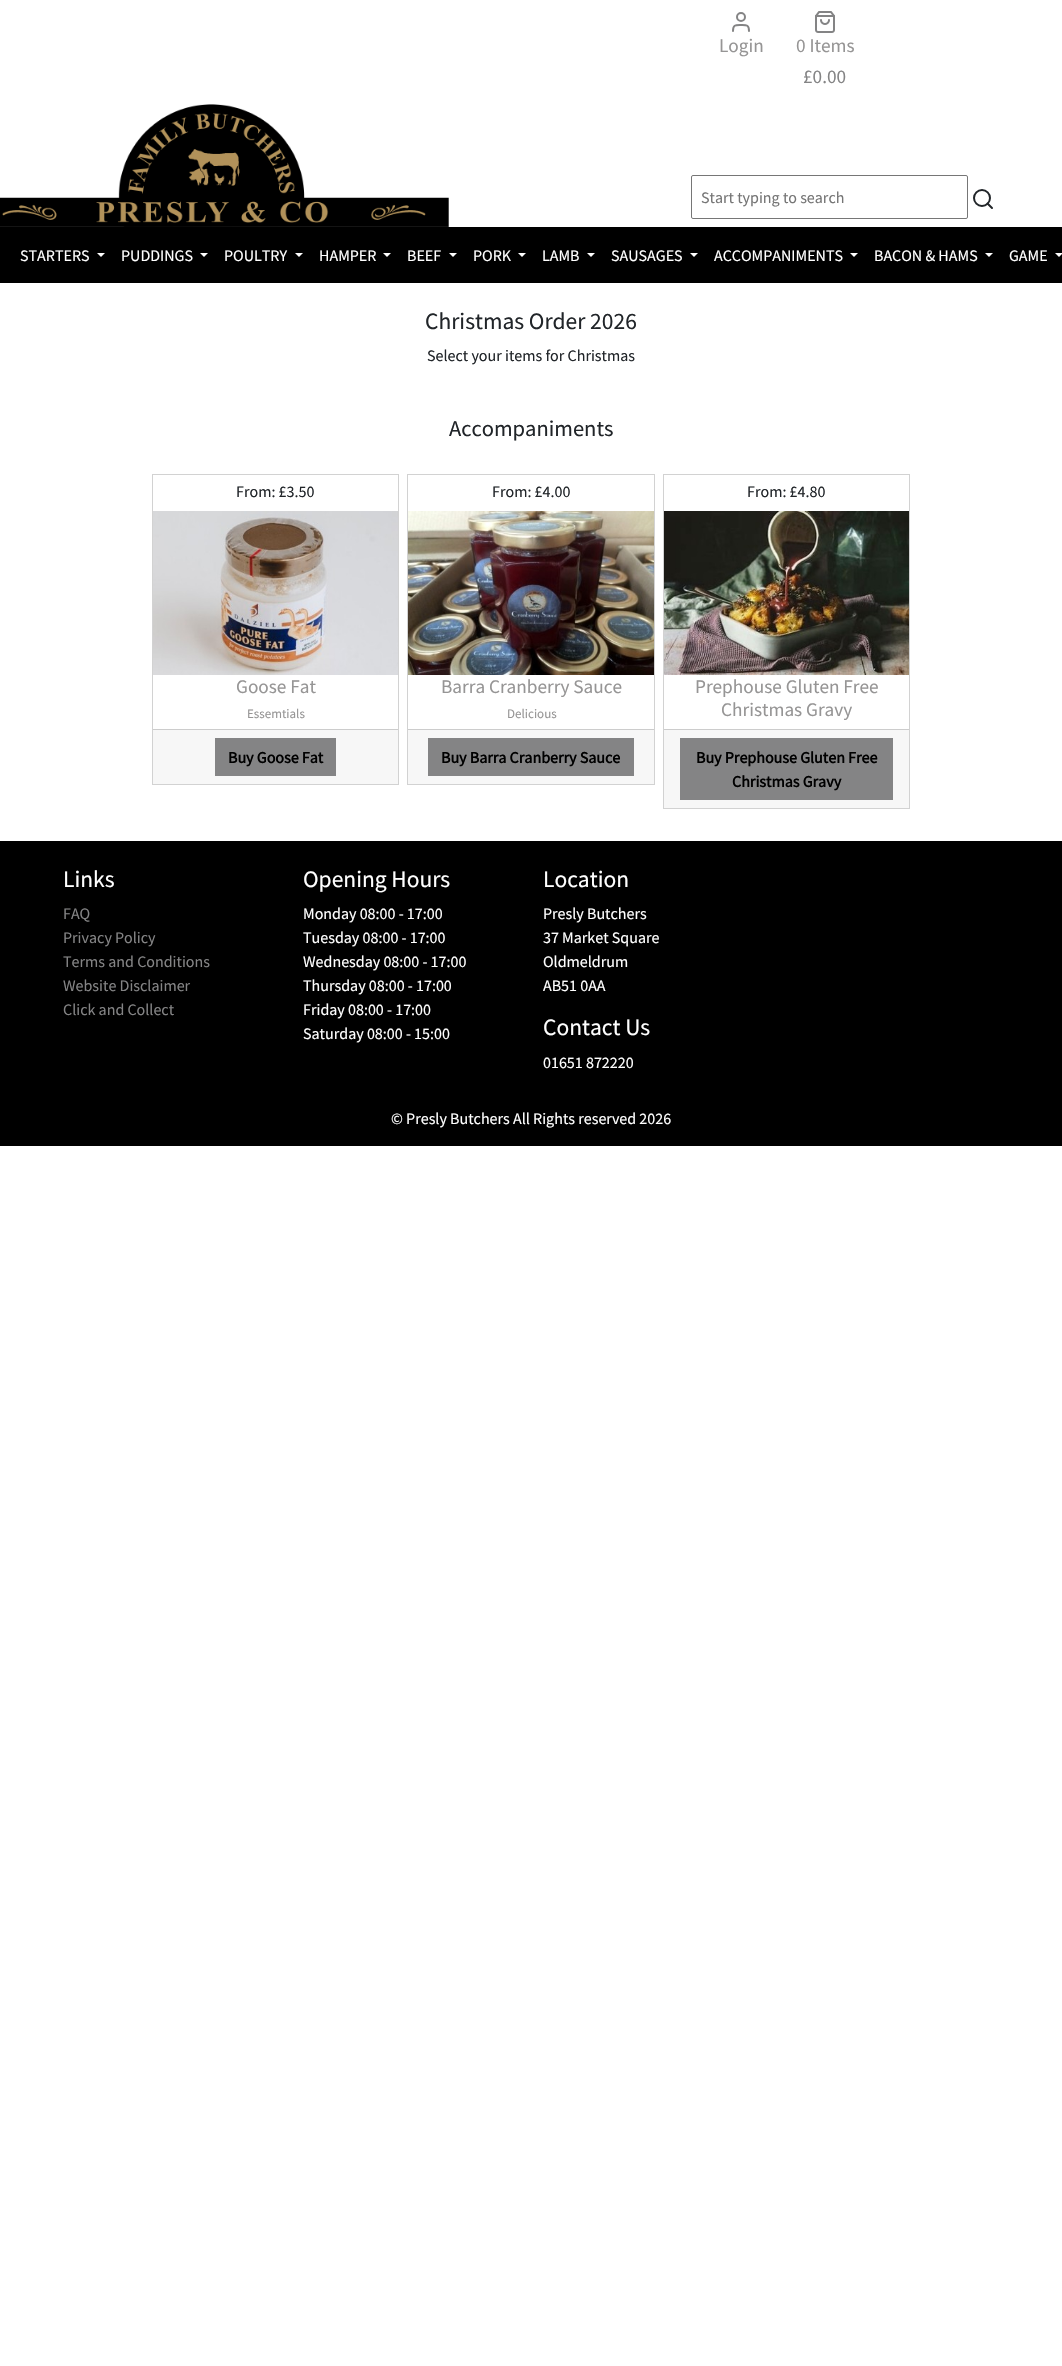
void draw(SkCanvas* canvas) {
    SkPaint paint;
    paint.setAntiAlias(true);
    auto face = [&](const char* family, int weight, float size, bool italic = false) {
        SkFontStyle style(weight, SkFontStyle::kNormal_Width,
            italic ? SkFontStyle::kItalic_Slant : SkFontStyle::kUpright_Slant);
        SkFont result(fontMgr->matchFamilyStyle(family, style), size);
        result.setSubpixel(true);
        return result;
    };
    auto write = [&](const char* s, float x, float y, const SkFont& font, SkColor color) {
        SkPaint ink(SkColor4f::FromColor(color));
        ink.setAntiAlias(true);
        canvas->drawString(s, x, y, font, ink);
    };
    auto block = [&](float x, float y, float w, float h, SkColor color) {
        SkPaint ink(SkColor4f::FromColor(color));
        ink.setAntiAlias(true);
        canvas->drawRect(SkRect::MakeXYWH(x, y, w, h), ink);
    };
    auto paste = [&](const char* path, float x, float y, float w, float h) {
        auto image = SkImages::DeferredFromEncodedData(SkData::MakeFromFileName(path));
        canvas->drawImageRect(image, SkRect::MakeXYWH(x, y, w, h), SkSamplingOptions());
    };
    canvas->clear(SK_ColorWHITE);
    paint.setStyle(SkPaint::kStroke_Style);
    paint.setStrokeWidth(2);
    paint.setColor(SkColorSetRGB(132, 132, 133));
    canvas->drawCircle(741, 17, 4, paint);
    paint.setStrokeCap(SkPaint::kRound_Cap);
    paint.setStrokeJoin(SkPaint::kRound_Join);
    canvas->drawPath(SkPathBuilder().moveTo(749, 31).cubicTo(749, 24.5f, 746.5f, 25, 741, 25).cubicTo(735.5f, 25, 733, 24.5f, 733, 31).detach(), paint);
    auto kFont1 = face("Source Sans Pro", 400, 19.25f);
    write("Login", 719, 52, kFont1, SkColorSetRGB(150, 149, 149));
    paste("pic1.png", 815, 11, 20, 22);
    write("0 Items", 796, 52, kFont1, SkColorSetRGB(150, 149, 149));
    write("£0.00", 803, 83, kFont1, SkColorSetRGB(132, 132, 133));
    paste("pic2.png", 0, 104, 449, 123);
    paint.setStrokeWidth(1);
    paint.setStrokeCap(SkPaint::kButt_Cap);
    paint.setStrokeJoin(SkPaint::kMiter_Join);
    paint.setColor(SkColorSetRGB(118, 118, 118));
    canvas->drawRoundRect(SkRect::MakeXYWH(691.5f, 175.5f, 276, 43), 1.5f, 1.5f, paint);
    auto kFont2 = face("Source Sans Pro", 400, 16);
    write("Start typing to search", 701, 203, kFont2, SkColorSetRGB(117, 117, 117));
    paint.setStrokeWidth(2);
    paint.setColor(SkColorSetRGB(33, 37, 41));
    canvas->drawCircle(982, 198, 8, paint);
    paint.setStrokeCap(SkPaint::kRound_Cap);
    paint.setStrokeJoin(SkPaint::kRound_Join);
    canvas->drawPath(SkPathBuilder().moveTo(992, 208).lineTo(987.5f, 203.5f).detach(), paint);
    block(0, 227, 1062, 56, SK_ColorBLACK);
    write("STARTERS", 20, 261, kFont2, SK_ColorWHITE);
    paint.setStyle(SkPaint::kFill_Style);
    paint.setColor(SK_ColorWHITE);
    canvas->drawPath(SkPathBuilder().moveTo(97, 253).lineTo(105, 253).lineTo(101, 257).close().detach(), paint);
    write("PUDDINGS", 121, 261, kFont2, SK_ColorWHITE);
    canvas->drawPath(SkPathBuilder().moveTo(200, 253).lineTo(208, 253).lineTo(204, 257).close().detach(), paint);
    write("POULTRY", 224, 261, kFont2, SK_ColorWHITE);
    canvas->drawPath(SkPathBuilder().moveTo(295, 253).lineTo(303, 253).lineTo(299, 257).close().detach(), paint);
    write("HAMPER", 319, 261, kFont2, SK_ColorWHITE);
    canvas->drawPath(SkPathBuilder().moveTo(383, 253).lineTo(391, 253).lineTo(387, 257).close().detach(), paint);
    write("BEEF", 407, 261, kFont2, SK_ColorWHITE);
    canvas->drawPath(SkPathBuilder().moveTo(449, 253).lineTo(457, 253).lineTo(453, 257).close().detach(), paint);
    write("PORK", 473, 261, kFont2, SK_ColorWHITE);
    canvas->drawPath(SkPathBuilder().moveTo(518, 253).lineTo(526, 253).lineTo(522, 257).close().detach(), paint);
    write("LAMB", 542, 261, kFont2, SK_ColorWHITE);
    canvas->drawPath(SkPathBuilder().moveTo(587, 253).lineTo(595, 253).lineTo(591, 257).close().detach(), paint);
    write("SAUSAGES", 611, 261, kFont2, SK_ColorWHITE);
    canvas->drawPath(SkPathBuilder().moveTo(690, 253).lineTo(698, 253).lineTo(694, 257).close().detach(), paint);
    write("ACCOMPANIMENTS", 714, 261, kFont2, SK_ColorWHITE);
    canvas->drawPath(SkPathBuilder().moveTo(850, 253).lineTo(858, 253).lineTo(854, 257).close().detach(), paint);
    write("BACON & HAMS", 874, 261, kFont2, SK_ColorWHITE);
    canvas->drawPath(SkPathBuilder().moveTo(985, 253).lineTo(993, 253).lineTo(989, 257).close().detach(), paint);
    write("GAME", 1009, 261, kFont2, SK_ColorWHITE);
    canvas->drawPath(SkPathBuilder().moveTo(1055, 253).lineTo(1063, 253).lineTo(1059, 257).close().detach(), paint);
    auto kFont3 = face("Source Sans Pro", 400, 23.5f);
    write("Christmas Order 2026", 425, 329, kFont3, SkColorSetRGB(33, 37, 41));
    write("Select your items for Christmas", 427, 361, kFont2, SkColorSetRGB(33, 37, 41));
    auto kFont4 = face("Source Sans Pro", 400, 22.5f);
    write("Accompaniments", 449, 436, kFont4, SkColorSetRGB(33, 37, 41));
    paint.setStyle(SkPaint::kStroke_Style);
    paint.setStrokeWidth(1);
    paint.setStrokeCap(SkPaint::kButt_Cap);
    paint.setStrokeJoin(SkPaint::kMiter_Join);
    paint.setColor(SkColorSetRGB(210, 210, 210));
    canvas->drawRect(SkRect::MakeXYWH(152.5f, 474.5f, 246, 310), paint);
    write("From: £3.50", 236, 497, kFont2, SkColorSetRGB(33, 37, 41));
    paste("pic3.png", 153, 511, 245, 164);
    write("Goose Fat", 236, 693, kFont1, SkColorSetRGB(150, 149, 149));
    auto kFont5 = face("Source Sans Pro", 400, 13);
    write("Essemtials", 247, 718, kFont5, SkColorSetRGB(150, 149, 149));
    block(153, 730, 245, 54, SkColorSetRGB(247, 247, 247));
    block(153, 729, 245, 1, SkColorSetRGB(204, 204, 204));
    block(215, 738, 121, 38, SkColorSetRGB(132, 132, 133));
    auto kFont6 = face("Source Sans Pro", 700, 16);
    write("Buy Goose Fat", 228, 763, kFont6, SK_ColorBLACK);
    canvas->drawRect(SkRect::MakeXYWH(407.5f, 474.5f, 247, 310), paint);
    write("From: £4.00", 492, 497, kFont2, SkColorSetRGB(33, 37, 41));
    paste("pic4.png", 408, 511, 246, 164);
    write("Barra Cranberry Sauce", 441, 693, kFont1, SkColorSetRGB(150, 149, 149));
    write("Delicious", 507, 718, kFont5, SkColorSetRGB(150, 149, 149));
    block(408, 730, 246, 54, SkColorSetRGB(247, 247, 247));
    block(408, 729, 246, 1, SkColorSetRGB(204, 204, 204));
    block(428, 738, 206, 38, SkColorSetRGB(132, 132, 133));
    write("Buy Barra Cranberry Sauce", 441, 763, kFont6, SK_ColorBLACK);
    canvas->drawRect(SkRect::MakeXYWH(663.5f, 474.5f, 246, 334), paint);
    write("From: £4.80", 747, 497, kFont2, SkColorSetRGB(33, 37, 41));
    paste("pic5.png", 664, 511, 245, 164);
    write("Prephouse Gluten Free", 695, 693, kFont1, SkColorSetRGB(150, 149, 149));
    write("Christmas Gravy", 721, 716, kFont1, SkColorSetRGB(150, 149, 149));
    block(664, 730, 245, 78, SkColorSetRGB(247, 247, 247));
    block(664, 729, 245, 1, SkColorSetRGB(204, 204, 204));
    block(680, 738, 213, 62, SkColorSetRGB(132, 132, 133));
    write("Buy Prephouse Gluten Free", 696, 763, kFont6, SK_ColorBLACK);
    write("Christmas Gravy", 732, 787, kFont6, SK_ColorBLACK);
    block(0, 841, 1062, 305, SK_ColorBLACK);
    write("Links", 63, 887, kFont3, SK_ColorWHITE);
    write("FAQ", 63, 919, kFont2, SkColorSetRGB(132, 132, 133));
    write("Privacy Policy", 63, 943, kFont2, SkColorSetRGB(132, 132, 133));
    write("Terms and Conditions", 63, 967, kFont2, SkColorSetRGB(132, 132, 133));
    write("Website Disclaimer", 63, 991, kFont2, SkColorSetRGB(132, 132, 133));
    write("Click and Collect", 63, 1015, kFont2, SkColorSetRGB(132, 132, 133));
    write("Opening Hours", 303, 887, kFont3, SK_ColorWHITE);
    write("Monday 08:00 - 17:00", 303, 919, kFont2, SK_ColorWHITE);
    write("Tuesday 08:00 - 17:00", 303, 943, kFont2, SK_ColorWHITE);
    write("Wednesday 08:00 - 17:00", 303, 967, kFont2, SK_ColorWHITE);
    write("Thursday 08:00 - 17:00", 303, 991, kFont2, SK_ColorWHITE);
    write("Friday 08:00 - 17:00", 303, 1015, kFont2, SK_ColorWHITE);
    write("Saturday 08:00 - 15:00", 303, 1039, kFont2, SK_ColorWHITE);
    write("Location", 543, 887, kFont3, SK_ColorWHITE);
    write("Presly Butchers", 543, 919, kFont2, SK_ColorWHITE);
    write("37 Market Square", 543, 943, kFont2, SK_ColorWHITE);
    write("Oldmeldrum", 543, 967, kFont2, SK_ColorWHITE);
    write("AB51 0AA", 543, 991, kFont2, SK_ColorWHITE);
    write("Contact Us", 543, 1035, kFont3, SK_ColorWHITE);
    write("01651 872220", 543, 1068, kFont2, SK_ColorWHITE);
    write("© Presly Butchers All Rights reserved 2026", 391, 1124, kFont2, SK_ColorWHITE);
}
